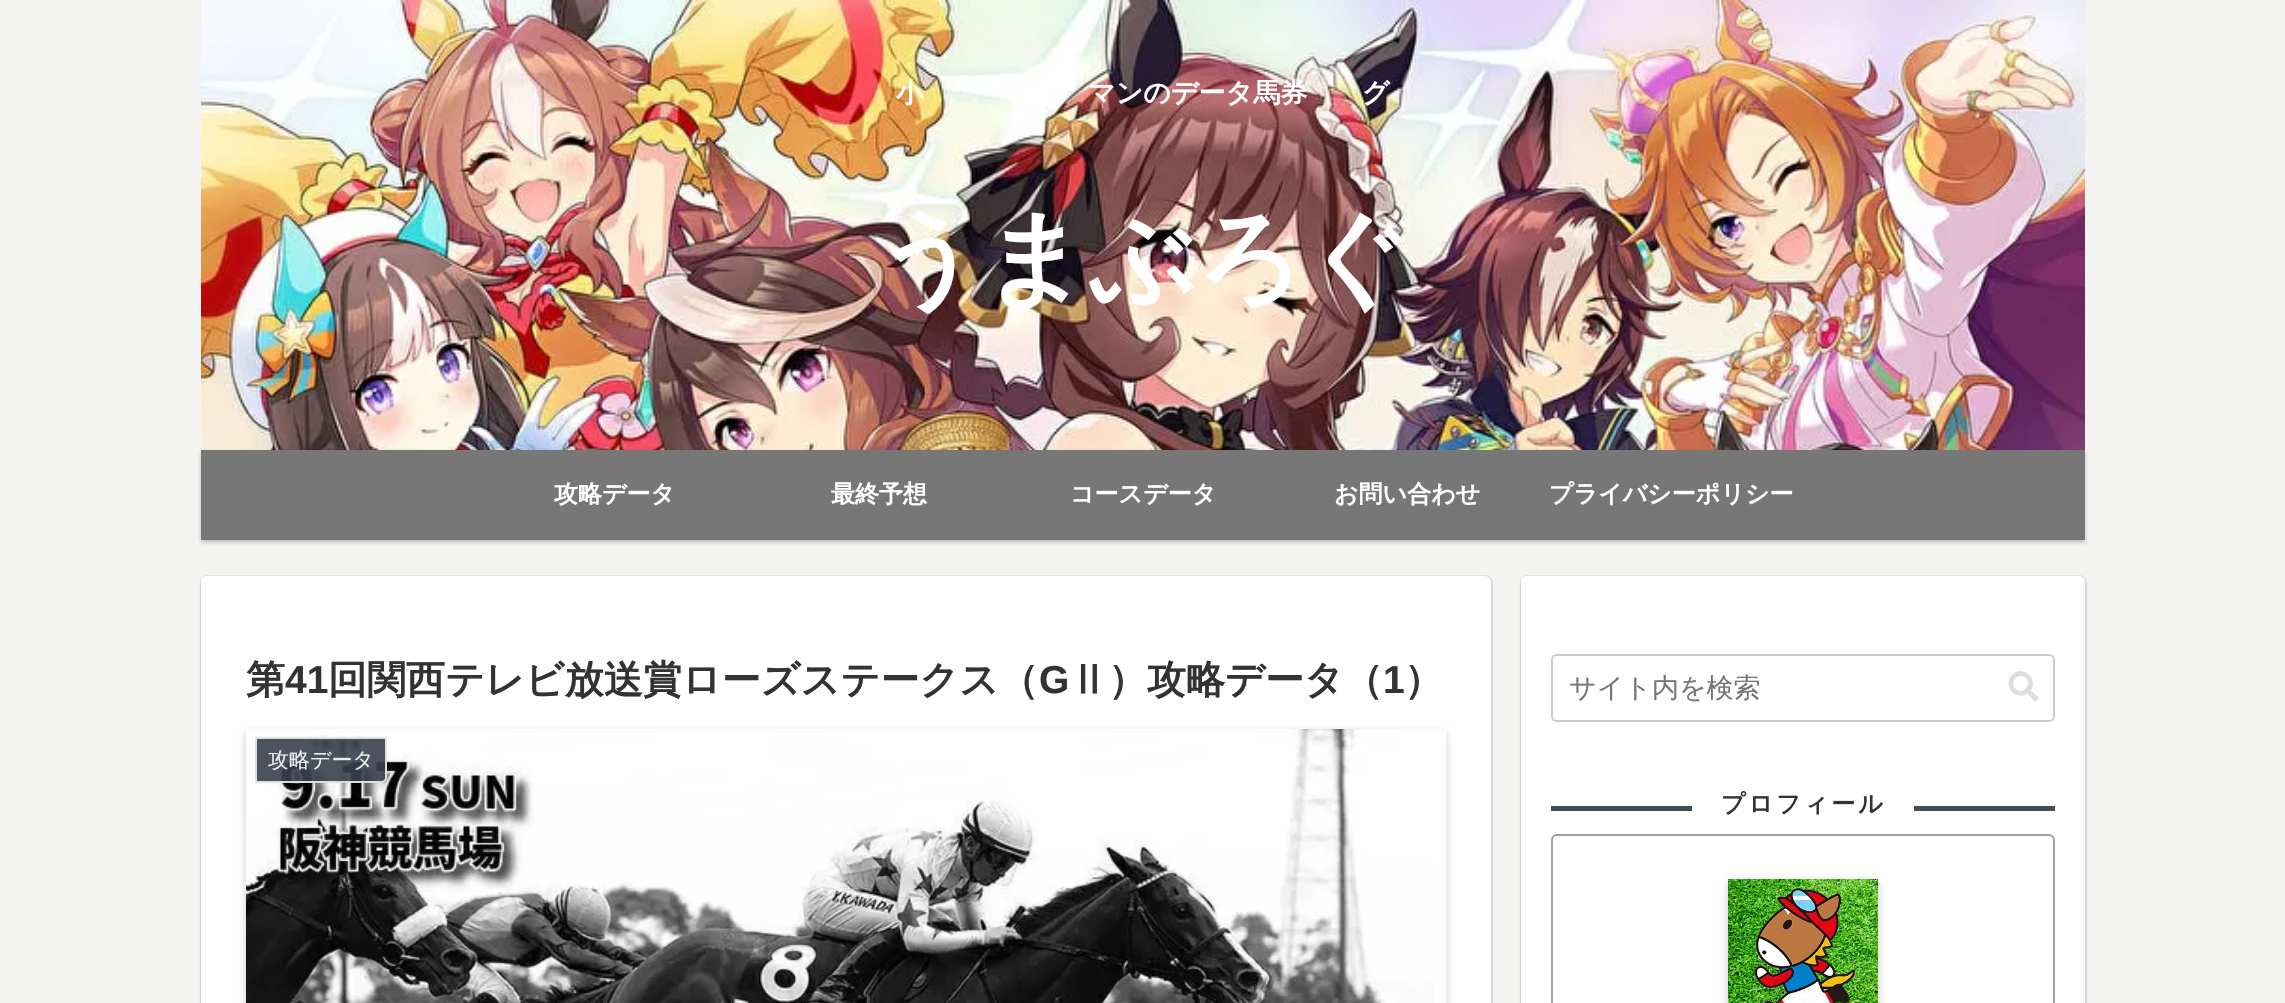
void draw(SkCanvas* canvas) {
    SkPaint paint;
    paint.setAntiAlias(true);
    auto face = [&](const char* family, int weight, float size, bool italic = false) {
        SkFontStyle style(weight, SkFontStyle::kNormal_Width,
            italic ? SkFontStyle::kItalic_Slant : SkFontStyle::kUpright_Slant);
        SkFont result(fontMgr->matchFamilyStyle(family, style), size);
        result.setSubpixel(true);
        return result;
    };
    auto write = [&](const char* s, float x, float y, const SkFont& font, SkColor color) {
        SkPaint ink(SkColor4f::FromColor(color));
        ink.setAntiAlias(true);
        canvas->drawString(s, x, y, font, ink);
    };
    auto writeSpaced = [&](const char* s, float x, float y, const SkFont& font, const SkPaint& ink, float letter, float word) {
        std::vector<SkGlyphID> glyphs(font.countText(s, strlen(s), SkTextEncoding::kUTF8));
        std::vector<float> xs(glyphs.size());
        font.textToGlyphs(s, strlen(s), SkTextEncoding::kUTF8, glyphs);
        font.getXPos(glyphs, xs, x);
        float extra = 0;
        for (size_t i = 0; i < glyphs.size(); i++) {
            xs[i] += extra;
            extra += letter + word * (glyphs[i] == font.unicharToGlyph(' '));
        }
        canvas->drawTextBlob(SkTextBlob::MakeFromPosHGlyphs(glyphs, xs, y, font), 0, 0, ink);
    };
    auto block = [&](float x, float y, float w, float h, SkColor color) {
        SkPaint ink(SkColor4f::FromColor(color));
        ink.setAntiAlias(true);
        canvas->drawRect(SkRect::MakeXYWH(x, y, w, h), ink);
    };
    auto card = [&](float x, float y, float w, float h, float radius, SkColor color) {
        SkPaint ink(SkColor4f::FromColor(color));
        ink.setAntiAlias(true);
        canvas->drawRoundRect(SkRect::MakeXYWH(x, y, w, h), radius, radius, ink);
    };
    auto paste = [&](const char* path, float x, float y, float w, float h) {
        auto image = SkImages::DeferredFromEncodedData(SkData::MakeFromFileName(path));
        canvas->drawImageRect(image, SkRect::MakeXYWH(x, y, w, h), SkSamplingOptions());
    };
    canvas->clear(SkColorSetRGB(243, 243, 242));
    paste("pic1.png", 201, 0, 1884, 450);
    auto kFont1 = face("WenQuanYi Zen Hei", 700, 27);
    write("小", 896, 102, kFont1, SK_ColorWHITE);
    write("マンのデータ馬券", 1088, 102, kFont1, SK_ColorWHITE);
    write("グ", 1362, 102, kFont1, SK_ColorWHITE);
    auto kFont2 = face("WenQuanYi Zen Hei", 700, 105);
    write("うまぶろぐ", 874, 294, kFont2, SK_ColorWHITE);
    paint.setColor(SkColorSetARGB(64, 0, 0, 0));
    paint.setMaskFilter(SkMaskFilter::MakeBlur(kNormal_SkBlurStyle, 2));
    canvas->drawRect(SkRect::MakeXYWH(201, 452, 1884, 90), paint);
    paint.setMaskFilter(nullptr);
    block(201, 450, 1884, 90, SkColorSetRGB(119, 119, 119));
    auto kFont3 = face("WenQuanYi Zen Hei", 700, 24);
    write("攻略データ", 554, 502, kFont3, SK_ColorWHITE);
    write("最終予想", 831, 502, kFont3, SK_ColorWHITE);
    write("コースデータ", 1070, 502, kFont3, SK_ColorWHITE);
    write("お問い合わせ", 1334, 502, kFont3, SK_ColorWHITE);
    write("プライバシーポリシー", 1549, 502, kFont3, SK_ColorWHITE);
    paint.setStyle(SkPaint::kStroke_Style);
    paint.setStrokeWidth(2);
    paint.setColor(SkColorSetRGB(224, 224, 223));
    canvas->drawRoundRect(SkRect::MakeXYWH(201, 576, 1291, 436), 7, 7, paint);
    paint.setStyle(SkPaint::kFill_Style);
    paint.setColor(SkColorSetARGB(41, 0, 0, 0));
    paint.setMaskFilter(SkMaskFilter::MakeBlur(kNormal_SkBlurStyle, 1.5f));
    canvas->drawRoundRect(SkRect::MakeXYWH(201, 579, 1290, 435), 6, 6, paint);
    paint.setMaskFilter(nullptr);
    card(201, 576, 1290, 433, 6, SK_ColorWHITE);
    auto kFont4 = face("WenQuanYi Zen Hei", 700, 39);
    write("第", 246, 693, kFont4, SkColorSetRGB(51, 51, 51));
    auto kFont5 = face("Liberation Sans", 700, 39);
    write("41", 285, 693, kFont5, SkColorSetRGB(51, 51, 51));
    write("回関西テレビ放送賞ローズステークス（", 328, 693, kFont4, SkColorSetRGB(51, 51, 51));
    write("G", 1039, 693, kFont5, SkColorSetRGB(51, 51, 51));
    write("Ⅱ）攻略データ（", 1069, 693, kFont4, SkColorSetRGB(51, 51, 51));
    write("1", 1383, 693, kFont5, SkColorSetRGB(51, 51, 51));
    write("）", 1404, 693, kFont4, SkColorSetRGB(51, 51, 51));
    canvas->save();
    canvas->clipPath(SkPathBuilder(SkPathFillType::kEvenOdd).moveTo(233, 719).lineTo(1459, 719).lineTo(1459, 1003).lineTo(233, 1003).close().moveTo(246, 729).lineTo(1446, 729).lineTo(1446, 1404).lineTo(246, 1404).close().detach(), true);
    paint.setColor(SkColorSetARGB(51, 0, 0, 0));
    paint.setMaskFilter(SkMaskFilter::MakeBlur(kNormal_SkBlurStyle, 4));
    canvas->drawRect(SkRect::MakeXYWH(246, 732, 1200, 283), paint);
    paint.setMaskFilter(nullptr);
    canvas->restore();
    paste("pic2.png", 246, 729, 1189, 274);
    paint.setColor(SkColorSetARGB(230, 57, 63, 76));
    canvas->drawPath(SkPathBuilder().moveTo(255, 737).lineTo(387, 737).lineTo(387, 778).cubicTo(387, 781, 385, 783, 382, 783).lineTo(255, 783).close().detach(), paint);
    paint.setStyle(SkPaint::kStroke_Style);
    paint.setColor(SkColorSetARGB(230, 238, 238, 238));
    canvas->drawPath(SkPathBuilder().moveTo(256, 738).lineTo(386, 738).lineTo(386, 778).cubicTo(386, 780, 384, 782, 382, 782).lineTo(256, 782).close().detach(), paint);
    auto kFont6 = face("WenQuanYi Zen Hei", 500, 21);
    write("攻略データ", 268, 767, kFont6, SkColorSetRGB(237, 237, 238));
    paint.setColor(SkColorSetRGB(224, 224, 223));
    canvas->drawRoundRect(SkRect::MakeXYWH(1521, 576, 565, 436), 7, 7, paint);
    paint.setStyle(SkPaint::kFill_Style);
    paint.setColor(SkColorSetARGB(41, 0, 0, 0));
    paint.setMaskFilter(SkMaskFilter::MakeBlur(kNormal_SkBlurStyle, 1.5f));
    canvas->drawRoundRect(SkRect::MakeXYWH(1521, 579, 564, 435), 6, 6, paint);
    paint.setMaskFilter(nullptr);
    card(1521, 576, 564, 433, 6, SK_ColorWHITE);
    paint.setStyle(SkPaint::kStroke_Style);
    paint.setColor(SkColorSetRGB(204, 204, 204));
    canvas->drawRoundRect(SkRect::MakeXYWH(1552, 655, 502, 66), 5, 5, paint);
    auto kFont7 = face("WenQuanYi Zen Hei", 500, 27);
    write("サイト内を検索", 1569, 697, kFont7, SkColorSetRGB(117, 117, 117));
    paste("pic3.png", 2008, 671, 31, 31);
    block(1551, 806, 141, 5, SkColorSetRGB(68, 77, 83));
    paint.setStyle(SkPaint::kFill_Style);
    paint.setColor(SkColorSetRGB(51, 51, 51));
    writeSpaced("プロフィール", 1721, 812, kFont3, paint, 3, 0);
    block(1914, 806, 141, 5, SkColorSetRGB(68, 77, 83));
    paint.setStyle(SkPaint::kStroke_Style);
    paint.setColor(SkColorSetRGB(158, 161, 163));
    canvas->drawRoundRect(SkRect::MakeXYWH(1552, 835, 502, 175), 5, 5, paint);
    paint.setStyle(SkPaint::kFill_Style);
    paint.setColor(SkColorSetARGB(51, 0, 0, 0));
    paint.setMaskFilter(SkMaskFilter::MakeBlur(kNormal_SkBlurStyle, 4));
    canvas->drawRect(SkRect::MakeXYWH(1728, 882, 150, 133), paint);
    paint.setMaskFilter(nullptr);
    paste("pic4.png", 1728, 879, 150, 124);
}
